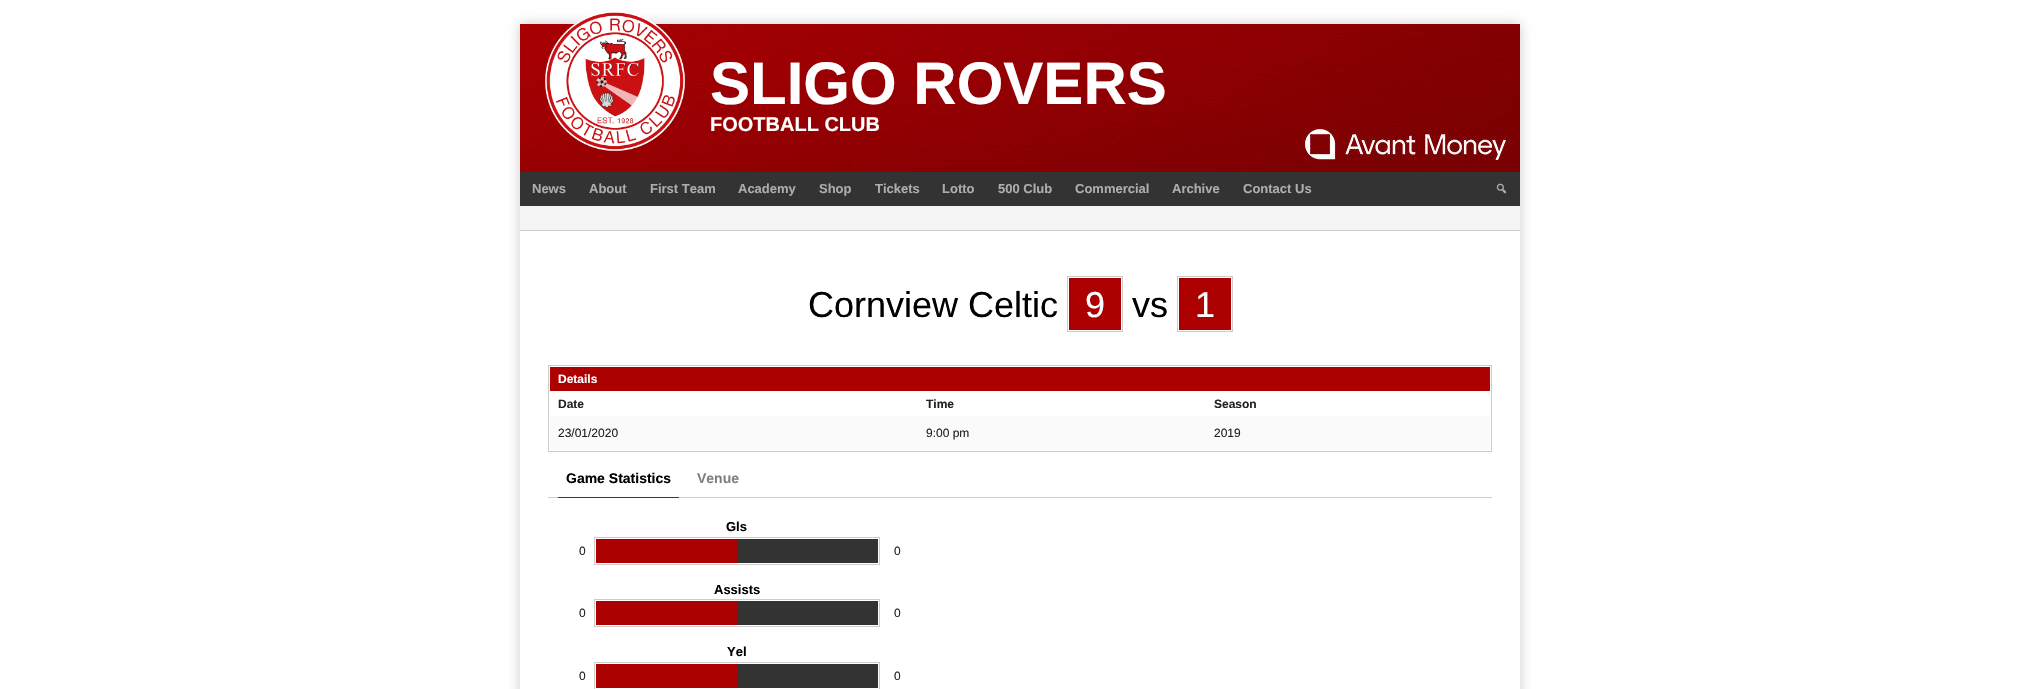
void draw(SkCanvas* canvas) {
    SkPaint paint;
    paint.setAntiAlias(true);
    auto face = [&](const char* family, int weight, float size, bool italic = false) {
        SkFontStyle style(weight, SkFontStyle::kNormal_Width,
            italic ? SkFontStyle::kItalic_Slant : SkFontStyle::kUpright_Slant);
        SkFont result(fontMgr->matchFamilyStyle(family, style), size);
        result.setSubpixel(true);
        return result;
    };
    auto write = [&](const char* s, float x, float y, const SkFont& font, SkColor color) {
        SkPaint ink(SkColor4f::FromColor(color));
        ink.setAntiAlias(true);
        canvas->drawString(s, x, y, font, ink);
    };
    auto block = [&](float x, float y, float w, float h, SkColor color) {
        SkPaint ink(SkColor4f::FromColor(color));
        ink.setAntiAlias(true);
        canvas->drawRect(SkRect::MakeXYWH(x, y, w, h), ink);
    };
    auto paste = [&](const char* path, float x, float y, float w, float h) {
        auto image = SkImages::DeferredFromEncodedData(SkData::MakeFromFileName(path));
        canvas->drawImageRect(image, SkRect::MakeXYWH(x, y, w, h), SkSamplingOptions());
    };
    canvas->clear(SK_ColorWHITE);
    canvas->save();
    canvas->clipPath(SkPathBuilder(SkPathFillType::kEvenOdd).moveTo(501, 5).lineTo(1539, 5).lineTo(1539, 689).lineTo(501, 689).close().moveTo(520, 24).lineTo(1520, 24).lineTo(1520, 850).lineTo(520, 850).close().detach(), true);
    paint.setColor(SkColorSetARGB(51, 0, 0, 0));
    paint.setMaskFilter(SkMaskFilter::MakeBlur(kNormal_SkBlurStyle, 6));
    canvas->drawRect(SkRect::MakeXYWH(520, 24, 1000, 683), paint);
    paint.setMaskFilter(nullptr);
    canvas->restore();
    paste("pic1.png", 520, 24, 1000, 148);
    paste("pic2.png", 545, 12, 141, 139);
    auto kFont1 = face("Liberation Sans", 700, 60);
    write("SLIGO ROVERS", 710, 104, kFont1, SK_ColorWHITE);
    auto kFont2 = face("Liberation Sans", 700, 20);
    write("FOOTBALL CLUB", 710, 131, kFont2, SK_ColorWHITE);
    block(520, 172, 1000, 34, SkColorSetRGB(51, 51, 51));
    auto kFont3 = face("Liberation Sans", 700, 13);
    write("News", 532, 193, kFont3, SkColorSetRGB(173, 173, 173));
    write("About", 589, 193, kFont3, SkColorSetRGB(173, 173, 173));
    write("First Team", 650, 193, kFont3, SkColorSetRGB(173, 173, 173));
    write("Academy", 738, 193, kFont3, SkColorSetRGB(173, 173, 173));
    write("Shop", 819, 193, kFont3, SkColorSetRGB(173, 173, 173));
    write("Tickets", 875, 193, kFont3, SkColorSetRGB(173, 173, 173));
    write("Lotto", 942, 193, kFont3, SkColorSetRGB(173, 173, 173));
    write("500 Club", 998, 193, kFont3, SkColorSetRGB(173, 173, 173));
    write("Commercial", 1075, 193, kFont3, SkColorSetRGB(173, 173, 173));
    write("Archive", 1172, 193, kFont3, SkColorSetRGB(173, 173, 173));
    write("Contact Us", 1243, 193, kFont3, SkColorSetRGB(173, 173, 173));
    paste("pic3.png", 1496, 183, 11, 11);
    block(520, 206, 1000, 24, SkColorSetRGB(245, 245, 245));
    block(520, 230, 1000, 1, SkColorSetRGB(204, 204, 204));
    auto kFont4 = face("Liberation Sans", 400, 36);
    write("Cornview Celtic", 808, 317, kFont4, SK_ColorBLACK);
    block(1069, 278, 52, 52, SkColorSetRGB(173, 0, 0));
    paint.setStyle(SkPaint::kStroke_Style);
    paint.setStrokeWidth(1);
    paint.setColor(SkColorSetRGB(204, 204, 204));
    canvas->drawRect(SkRect::MakeXYWH(1067.5f, 276.5f, 55, 55), paint);
    write("9", 1085, 317, kFont4, SK_ColorWHITE);
    write("vs", 1132, 317, kFont4, SK_ColorBLACK);
    block(1179, 278, 52, 52, SkColorSetRGB(173, 0, 0));
    canvas->drawRect(SkRect::MakeXYWH(1177.5f, 276.5f, 55, 55), paint);
    write("1", 1195, 317, kFont4, SK_ColorWHITE);
    canvas->drawRect(SkRect::MakeXYWH(548.5f, 365.5f, 943, 86), paint);
    block(550, 367, 940, 24, SkColorSetRGB(173, 0, 0));
    auto kFont5 = face("Liberation Sans", 700, 12);
    write("Details", 558, 383, kFont5, SK_ColorWHITE);
    write("Date", 558, 408, kFont5, SkColorSetRGB(34, 34, 34));
    write("Time", 926, 408, kFont5, SkColorSetRGB(34, 34, 34));
    write("Season", 1214, 408, kFont5, SkColorSetRGB(34, 34, 34));
    block(550, 416, 940, 34, SkColorSetRGB(250, 250, 250));
    auto kFont6 = face("Liberation Sans", 400, 12);
    write("23/01/2020", 558, 437, kFont6, SkColorSetRGB(34, 34, 34));
    write("9:00 pm", 926, 437, kFont6, SkColorSetRGB(34, 34, 34));
    write("2019", 1214, 437, kFont6, SkColorSetRGB(34, 34, 34));
    block(548, 497, 944, 1, SkColorSetRGB(204, 204, 204));
    block(558, 497, 121, 1, SkColorSetRGB(198, 0, 0));
    auto kFont7 = face("Liberation Sans", 700, 14);
    write("Game Statistics", 566, 483, kFont7, SK_ColorBLACK);
    write("Venue", 697, 483, kFont7, SkColorSetRGB(128, 128, 128));
    write("Gls", 726, 531, kFont3, SK_ColorBLACK);
    write("0", 579, 555, kFont6, SkColorSetRGB(34, 34, 34));
    canvas->drawRect(SkRect::MakeXYWH(594.5f, 537.5f, 285, 27), paint);
    block(737, 539, 141, 24, SkColorSetRGB(51, 51, 51));
    block(596, 539, 141, 24, SkColorSetRGB(173, 0, 0));
    write("0", 894, 555, kFont6, SkColorSetRGB(34, 34, 34));
    write("Assists", 714, 594, kFont3, SK_ColorBLACK);
    write("0", 579, 617, kFont6, SkColorSetRGB(34, 34, 34));
    canvas->drawRect(SkRect::MakeXYWH(594.5f, 599.5f, 285, 27), paint);
    block(737, 601, 141, 24, SkColorSetRGB(51, 51, 51));
    block(596, 601, 141, 24, SkColorSetRGB(173, 0, 0));
    write("0", 894, 617, kFont6, SkColorSetRGB(34, 34, 34));
    write("Yel", 727, 656, kFont3, SK_ColorBLACK);
    write("0", 579, 680, kFont6, SkColorSetRGB(34, 34, 34));
    canvas->drawRect(SkRect::MakeXYWH(594.5f, 662.5f, 285, 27), paint);
    block(737, 664, 141, 24, SkColorSetRGB(51, 51, 51));
    block(596, 664, 141, 24, SkColorSetRGB(173, 0, 0));
    write("0", 894, 680, kFont6, SkColorSetRGB(34, 34, 34));
}
